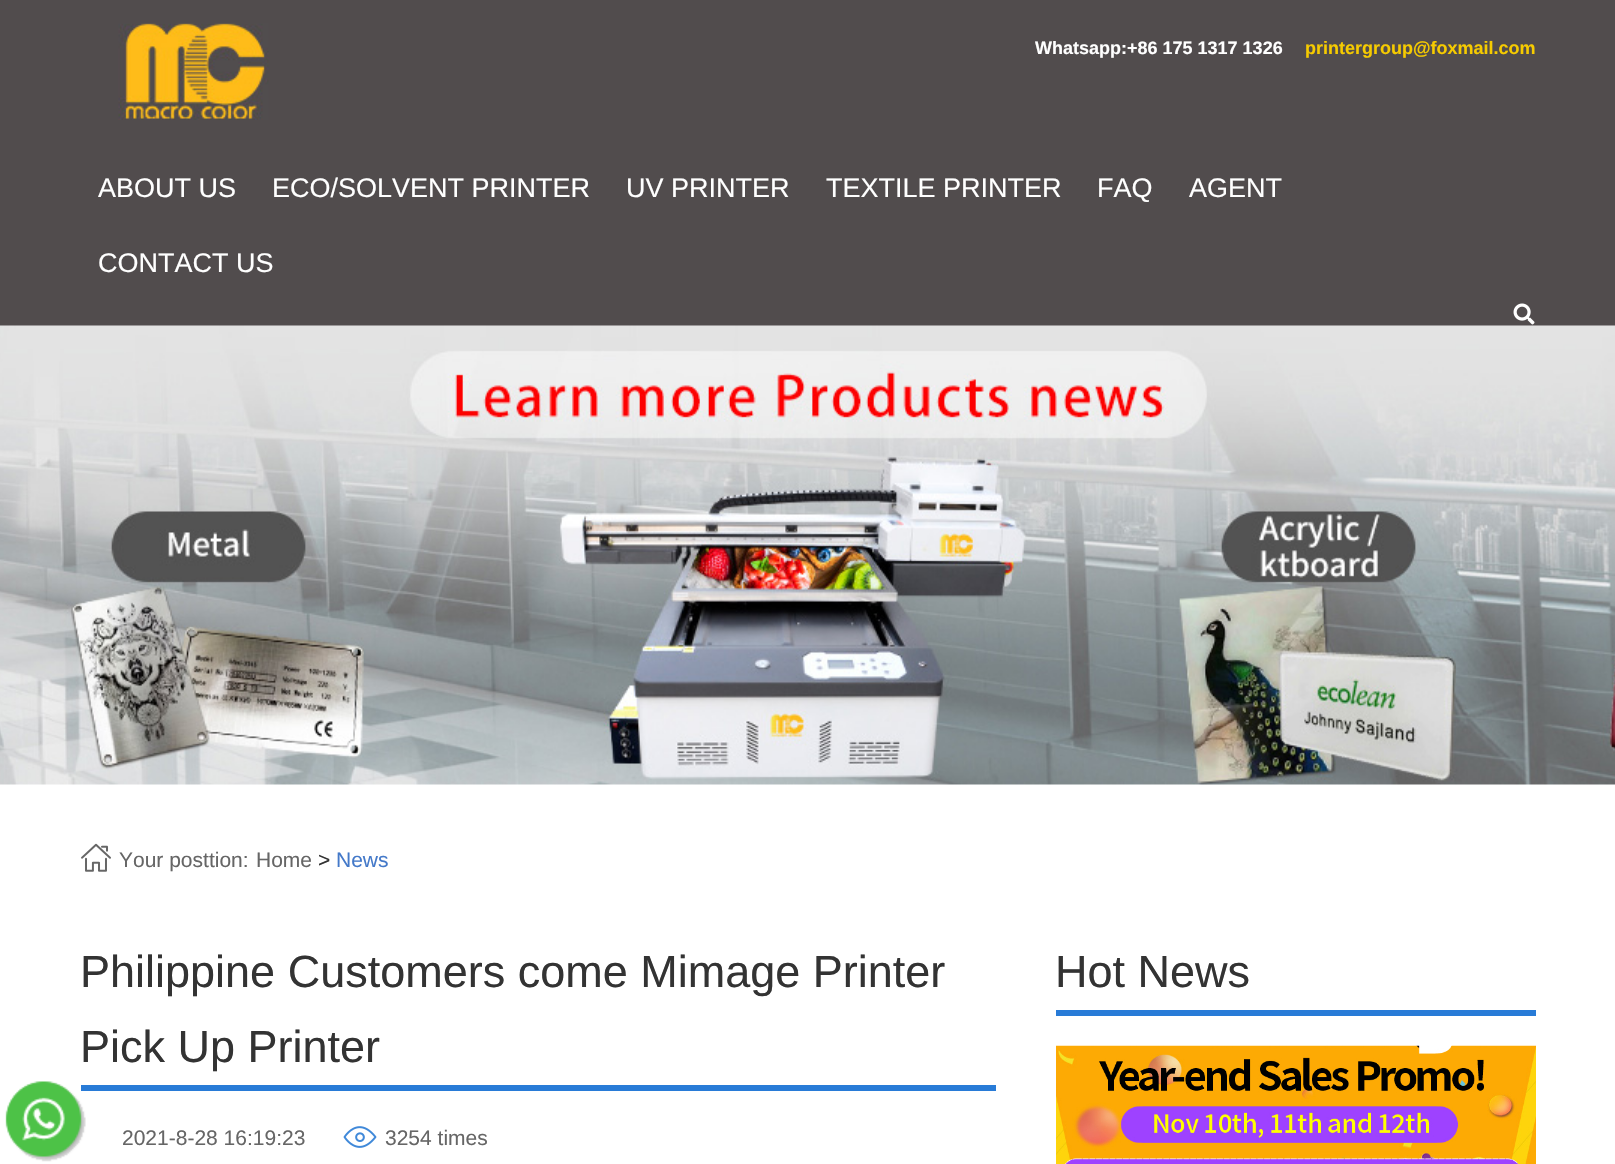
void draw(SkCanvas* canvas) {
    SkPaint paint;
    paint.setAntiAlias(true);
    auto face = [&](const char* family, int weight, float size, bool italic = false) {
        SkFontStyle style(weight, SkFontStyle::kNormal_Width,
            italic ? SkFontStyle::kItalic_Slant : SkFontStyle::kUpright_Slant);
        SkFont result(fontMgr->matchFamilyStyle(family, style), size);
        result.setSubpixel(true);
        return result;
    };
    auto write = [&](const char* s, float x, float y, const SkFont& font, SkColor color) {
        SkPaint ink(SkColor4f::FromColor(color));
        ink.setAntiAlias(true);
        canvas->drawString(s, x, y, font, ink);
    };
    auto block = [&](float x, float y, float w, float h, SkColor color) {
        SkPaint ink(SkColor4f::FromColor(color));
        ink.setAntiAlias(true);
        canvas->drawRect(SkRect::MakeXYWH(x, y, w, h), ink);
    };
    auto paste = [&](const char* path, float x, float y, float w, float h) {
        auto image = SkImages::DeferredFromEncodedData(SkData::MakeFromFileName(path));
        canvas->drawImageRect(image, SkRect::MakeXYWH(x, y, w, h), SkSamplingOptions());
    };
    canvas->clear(SK_ColorWHITE);
    block(0, 0, 1615, 326, SkColorSetRGB(81, 76, 77));
    paste("pic1.png", 118, 23, 151, 97);
    auto kFont1 = face("Liberation Sans", 700, 18);
    write("Whatsapp:+86 175 1317 1326", 1035, 54, kFont1, SK_ColorWHITE);
    write("printergroup@foxmail.com", 1305, 54, kFont1, SkColorSetRGB(246, 203, 0));
    auto kFont2 = face("Liberation Sans", 400, 27);
    write("ABOUT US", 98, 197, kFont2, SK_ColorWHITE);
    write("ECO/SOLVENT PRINTER", 272, 197, kFont2, SK_ColorWHITE);
    write("UV PRINTER", 626, 197, kFont2, SK_ColorWHITE);
    write("TEXTILE PRINTER", 826, 197, kFont2, SK_ColorWHITE);
    write("FAQ", 1097, 197, kFont2, SK_ColorWHITE);
    write("AGENT", 1189, 197, kFont2, SK_ColorWHITE);
    write("CONTACT US", 98, 272, kFont2, SK_ColorWHITE);
    paste("pic2.png", 1513, 303, 22, 22);
    paste("pic3.png", 0, 325, 1615, 460);
    paste("pic4.png", 81, 843, 30, 29);
    auto kFont3 = face("Liberation Sans", 400, 21);
    write("Your posttion:", 119, 867, kFont3, SkColorSetRGB(102, 102, 102));
    write("Home", 256, 867, kFont3, SkColorSetRGB(102, 102, 102));
    write(">", 318, 867, kFont3, SkColorSetRGB(51, 51, 51));
    write("News", 336, 867, kFont3, SkColorSetRGB(68, 121, 201));
    block(81, 1085, 915, 6, SkColorSetRGB(40, 123, 215));
    paste("pic5.png", 5, 1081, 81, 81);
    auto kFont4 = face("Liberation Sans", 400, 45);
    write("Philippine Customers come Mimage Printer", 80, 987, kFont4, SkColorSetRGB(51, 51, 51));
    write("Pick Up Printer", 80, 1062, kFont4, SkColorSetRGB(51, 51, 51));
    write("2021-8-28 16:19:23", 122, 1145, kFont3, SkColorSetRGB(102, 102, 102));
    paste("pic6.png", 343, 1126, 34, 22);
    write("3254 times", 385, 1145, kFont3, SkColorSetRGB(102, 102, 102));
    block(1056, 1010, 480, 6, SkColorSetRGB(40, 123, 215));
    write("Hot News", 1055, 987, kFont4, SkColorSetRGB(51, 51, 51));
    paste("pic7.png", 1056, 1045, 480, 119);
}
